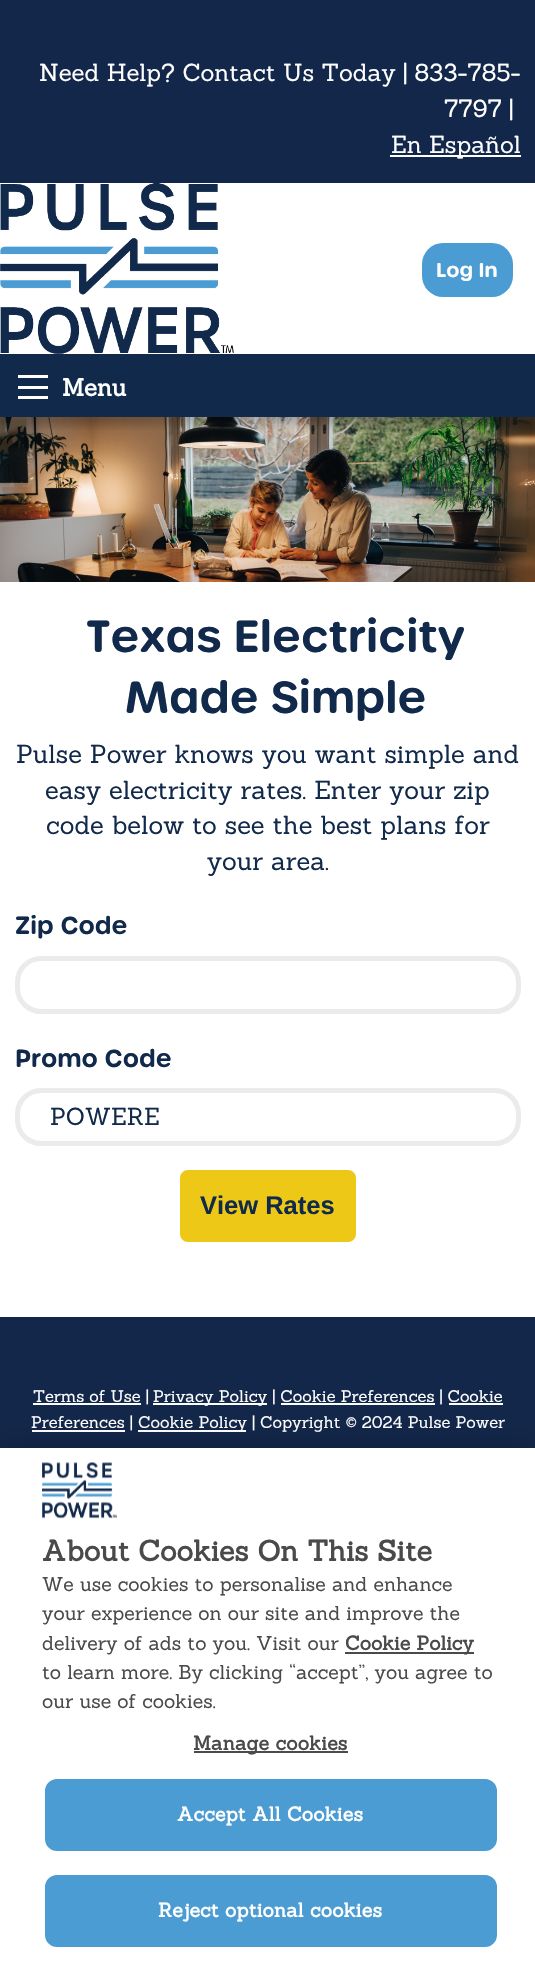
void draw(SkCanvas* canvas) {
    SkPaint paint;
    paint.setAntiAlias(true);
    auto face = [&](const char* family, int weight, float size, bool italic = false) {
        SkFontStyle style(weight, SkFontStyle::kNormal_Width,
            italic ? SkFontStyle::kItalic_Slant : SkFontStyle::kUpright_Slant);
        SkFont result(fontMgr->matchFamilyStyle(family, style), size);
        result.setSubpixel(true);
        return result;
    };
    auto write = [&](const char* s, float x, float y, const SkFont& font, SkColor color) {
        SkPaint ink(SkColor4f::FromColor(color));
        ink.setAntiAlias(true);
        canvas->drawString(s, x, y, font, ink);
    };
    auto writeSpaced = [&](const char* s, float x, float y, const SkFont& font, const SkPaint& ink, float letter, float word) {
        std::vector<SkGlyphID> glyphs(font.countText(s, strlen(s), SkTextEncoding::kUTF8));
        std::vector<float> xs(glyphs.size());
        font.textToGlyphs(s, strlen(s), SkTextEncoding::kUTF8, glyphs);
        font.getXPos(glyphs, xs, x);
        float extra = 0;
        for (size_t i = 0; i < glyphs.size(); i++) {
            xs[i] += extra;
            extra += letter + word * (glyphs[i] == font.unicharToGlyph(' '));
        }
        canvas->drawTextBlob(SkTextBlob::MakeFromPosHGlyphs(glyphs, xs, y, font), 0, 0, ink);
    };
    auto block = [&](float x, float y, float w, float h, SkColor color) {
        SkPaint ink(SkColor4f::FromColor(color));
        ink.setAntiAlias(true);
        canvas->drawRect(SkRect::MakeXYWH(x, y, w, h), ink);
    };
    auto card = [&](float x, float y, float w, float h, float radius, SkColor color) {
        SkPaint ink(SkColor4f::FromColor(color));
        ink.setAntiAlias(true);
        canvas->drawRoundRect(SkRect::MakeXYWH(x, y, w, h), radius, radius, ink);
    };
    auto paste = [&](const char* path, float x, float y, float w, float h) {
        auto image = SkImages::DeferredFromEncodedData(SkData::MakeFromFileName(path));
        canvas->drawImageRect(image, SkRect::MakeXYWH(x, y, w, h), SkSamplingOptions());
    };
    canvas->clear(SK_ColorWHITE);
    paste("pic2.png", 0, 417, 535, 165);
    canvas->save();
    canvas->clipRect(SkRect::MakeXYWH(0, 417, 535, 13));
    paint.setColor(SkColorSetARGB(51, 0, 0, 0));
    paint.setMaskFilter(SkMaskFilter::MakeBlur(kNormal_SkBlurStyle, 4));
    canvas->drawRect(SkRect::MakeXYWH(0, 8, 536, 417), paint);
    paint.setMaskFilter(nullptr);
    canvas->restore();
    block(0, 0, 535, 183, SkColorSetRGB(19, 39, 74));
    auto kFont1 = face("Sanchez", 400, 24);
    write("Need Help? Contact Us Today | 833-785-", 39, 81, kFont1, SK_ColorWHITE);
    write("7797 |", 444, 117, kFont1, SK_ColorWHITE);
    block(390, 155, 131, 2, SK_ColorWHITE);
    write("En Español", 391, 153, kFont1, SK_ColorWHITE);
    paste("pic1.png", 0, 183, 234, 171);
    card(422, 243, 91, 54, 21, SkColorSetRGB(75, 156, 211));
    auto kFont2 = face("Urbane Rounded", 600, 19.5f);
    write("Log In", 436, 277, kFont2, SK_ColorWHITE);
    block(0, 354, 535, 63, SkColorSetRGB(17, 41, 75));
    block(18, 396, 30, 3, SkColorSetRGB(254, 254, 254));
    block(18, 386, 30, 3, SkColorSetRGB(254, 254, 254));
    block(18, 375, 30, 3, SkColorSetRGB(254, 254, 254));
    auto kFont3 = face("Sanchez", 700, 24);
    write("Menu", 62, 396, kFont3, SK_ColorWHITE);
    auto kFont4 = face("Urbane Rounded", 600, 43.5f);
    write("Texas Electricity", 86, 652, kFont4, SkColorSetRGB(17, 41, 75));
    write("Made Simple", 125, 713, kFont4, SkColorSetRGB(17, 41, 75));
    auto kFont5 = face("Sanchez", 400, 25.5f);
    write("Pulse Power knows you want simple and", 16, 763, kFont5, SkColorSetRGB(17, 41, 75));
    write("easy electricity rates. Enter your zip", 45, 799, kFont5, SkColorSetRGB(17, 41, 75));
    write("code below to see the best plans for", 46, 834, kFont5, SkColorSetRGB(17, 41, 75));
    write("your area.", 207, 870, kFont5, SkColorSetRGB(17, 41, 75));
    auto kFont6 = face("Urbane Rounded", 600, 24);
    write("Zip Code", 15, 934, kFont6, SkColorSetRGB(17, 41, 75));
    paint.setStyle(SkPaint::kStroke_Style);
    paint.setStrokeWidth(5);
    paint.setColor(SkColorSetRGB(235, 235, 235));
    canvas->drawRoundRect(SkRect::MakeXYWH(17.5f, 958.5f, 501, 53), 23.5f, 23.5f, paint);
    write("Promo Code", 15, 1067, kFont6, SkColorSetRGB(17, 41, 75));
    canvas->drawRoundRect(SkRect::MakeXYWH(17.5f, 1090.5f, 501, 53), 23.5f, 23.5f, paint);
    write("POWERE", 50, 1125, kFont1, SkColorSetRGB(17, 41, 75));
    paint.setStyle(SkPaint::kFill_Style);
    paint.setColor(SkColorSetRGB(237, 200, 23));
    canvas->drawRoundRect(SkRect::MakeXYWH(181.5f, 1171.5f, 173, 69), 6.5f, 6.5f, paint);
    paint.setStyle(SkPaint::kStroke_Style);
    paint.setStrokeWidth(3);
    canvas->drawRoundRect(SkRect::MakeXYWH(181.5f, 1171.5f, 173, 69), 6.5f, 6.5f, paint);
    auto kFont7 = face("Liberation Sans", 700, 25.5f);
    write("View Rates", 200, 1214, kFont7, SkColorSetRGB(17, 41, 75));
    block(0, 1317, 535, 131, SkColorSetRGB(19, 39, 74));
    block(33, 1403, 108, 2, SK_ColorWHITE);
    auto kFont8 = face("Sanchez", 400, 16.5f);
    write("Terms of Use |", 33, 1402, kFont8, SK_ColorWHITE);
    block(153, 1403, 114, 2, SK_ColorWHITE);
    write("Privacy Policy | Cookie Preferences | Cookie", 153, 1402, kFont8, SK_ColorWHITE);
    block(281, 1403, 154, 2, SK_ColorWHITE);
    block(32, 1430, 93, 2, SK_ColorWHITE);
    write("Preferences |", 31, 1428, kFont8, SK_ColorWHITE);
    block(449, 1403, 54, 2, SK_ColorWHITE);
    block(138, 1430, 108, 2, SK_ColorWHITE);
    write("Cookie Policy | Copyright © 2024 Pulse Power", 138, 1428, kFont8, SK_ColorWHITE);
    paint.setStyle(SkPaint::kFill_Style);
    paint.setColor(SkColorSetARGB(51, 0, 0, 0));
    paint.setMaskFilter(SkMaskFilter::MakeBlur(kNormal_SkBlurStyle, 13.5f));
    canvas->drawRect(SkRect::MakeXYWH(0, 1448, 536, 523), paint);
    paint.setMaskFilter(nullptr);
    block(0, 1448, 535, 522, SK_ColorWHITE);
    paste("pic3.png", 42, 1462, 75, 57);
    auto kFont9 = face("Sanchez", 700, 28.75f);
    write("About Cookies On This Site", 42, 1561, kFont9, SkColorSetRGB(74, 74, 74));
    auto kFont10 = face("Sanchez", 400, 19.5f);
    write("We use cookies to personalise and enhance", 42, 1591, kFont10, SkColorSetRGB(74, 74, 74));
    write("your experience on our site and improve the", 42, 1620, kFont10, SkColorSetRGB(74, 74, 74));
    write("delivery of ads to you. Visit our", 42, 1650, kFont10, SkColorSetRGB(74, 74, 74));
    block(345, 1652, 129, 2, SkColorSetRGB(74, 74, 74));
    auto kFont11 = face("Sanchez", 700, 19.5f);
    write("Cookie Policy", 345, 1650, kFont11, SkColorSetRGB(74, 74, 74));
    write("to learn more. By clicking “accept”, you agree to", 42, 1679, kFont10, SkColorSetRGB(74, 74, 74));
    write("our use of cookies.", 42, 1708, kFont10, SkColorSetRGB(74, 74, 74));
    block(194, 1751, 154, 2, SkColorSetRGB(74, 74, 74));
    paint.setColor(SkColorSetRGB(74, 74, 74));
    writeSpaced("Manage cookies", 193, 1750, kFont11, paint, 0.2f, 0);
    paint.setColor(SkColorSetRGB(75, 156, 211));
    canvas->drawRoundRect(SkRect::MakeXYWH(46, 1780, 450, 70), 11, 11, paint);
    paint.setStyle(SkPaint::kStroke_Style);
    paint.setStrokeWidth(2);
    canvas->drawRoundRect(SkRect::MakeXYWH(46, 1780, 450, 70), 11, 11, paint);
    paint.setStyle(SkPaint::kFill_Style);
    paint.setColor(SK_ColorWHITE);
    writeSpaced("Accept All Cookies", 177, 1821, kFont11, paint, 0.2f, 0);
    paint.setColor(SkColorSetRGB(75, 156, 211));
    canvas->drawRoundRect(SkRect::MakeXYWH(46, 1876, 450, 70), 11, 11, paint);
    paint.setStyle(SkPaint::kStroke_Style);
    canvas->drawRoundRect(SkRect::MakeXYWH(46, 1876, 450, 70), 11, 11, paint);
    paint.setStyle(SkPaint::kFill_Style);
    paint.setColor(SK_ColorWHITE);
    writeSpaced("Reject optional cookies", 158, 1917, kFont11, paint, 0.2f, 0);
}
